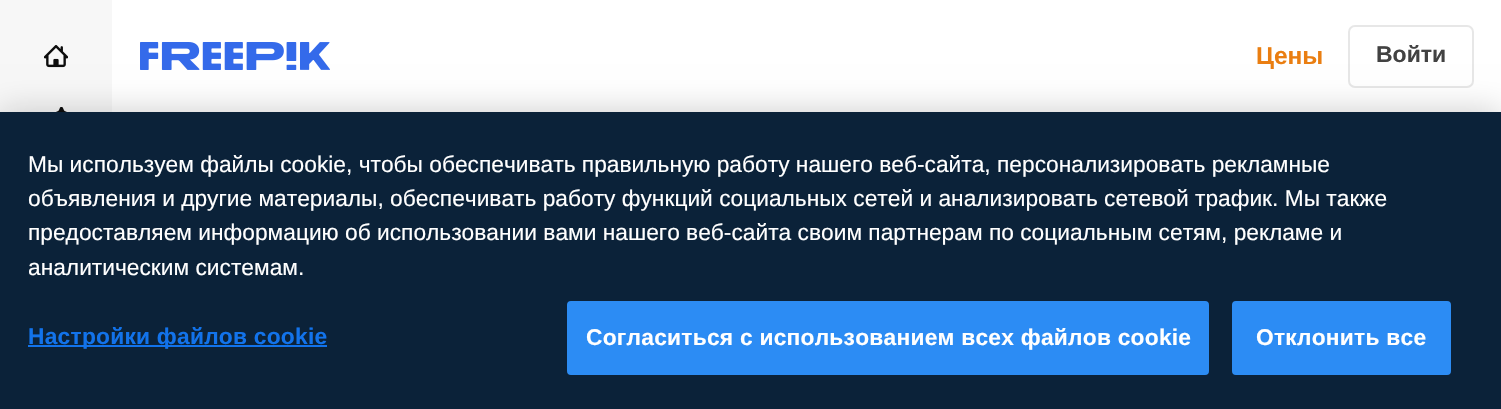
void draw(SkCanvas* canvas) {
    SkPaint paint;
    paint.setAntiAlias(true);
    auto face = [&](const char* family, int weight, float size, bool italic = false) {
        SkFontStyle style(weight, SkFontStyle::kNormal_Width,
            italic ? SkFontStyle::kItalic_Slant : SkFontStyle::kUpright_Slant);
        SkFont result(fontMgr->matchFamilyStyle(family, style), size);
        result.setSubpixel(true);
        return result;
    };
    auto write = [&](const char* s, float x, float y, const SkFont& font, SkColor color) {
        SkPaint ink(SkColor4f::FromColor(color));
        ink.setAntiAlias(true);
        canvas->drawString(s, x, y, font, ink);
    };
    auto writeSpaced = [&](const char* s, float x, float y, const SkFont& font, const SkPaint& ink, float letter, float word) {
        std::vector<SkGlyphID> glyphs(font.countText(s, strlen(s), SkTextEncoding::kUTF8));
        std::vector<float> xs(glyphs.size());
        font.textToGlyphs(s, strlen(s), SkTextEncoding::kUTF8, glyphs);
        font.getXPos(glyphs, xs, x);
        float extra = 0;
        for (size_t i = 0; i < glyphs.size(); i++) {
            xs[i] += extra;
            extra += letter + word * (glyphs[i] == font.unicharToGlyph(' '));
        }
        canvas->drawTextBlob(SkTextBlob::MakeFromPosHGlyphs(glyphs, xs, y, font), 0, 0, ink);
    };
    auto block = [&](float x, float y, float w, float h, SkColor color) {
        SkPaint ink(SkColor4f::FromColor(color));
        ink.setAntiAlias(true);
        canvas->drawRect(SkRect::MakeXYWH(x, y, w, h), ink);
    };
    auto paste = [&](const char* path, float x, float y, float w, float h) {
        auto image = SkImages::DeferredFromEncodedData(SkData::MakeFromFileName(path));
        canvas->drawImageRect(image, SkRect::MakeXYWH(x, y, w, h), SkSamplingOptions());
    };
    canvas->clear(SK_ColorWHITE);
    block(0, 0, 112, 112, SkColorSetRGB(247, 247, 247));
    paste("pic1.png", 44, 45, 24, 23);
    paste("pic2.png", 56, 107, 11, 5);
    paste("pic3.png", 140, 42, 190, 28);
    auto kFont1 = face("Liberation Sans", 700, 24.5f);
    write("Цены", 1256, 64, kFont1, SkColorSetRGB(234, 126, 17));
    paint.setStyle(SkPaint::kStroke_Style);
    paint.setStrokeWidth(2);
    paint.setColor(SkColorSetRGB(231, 231, 231));
    canvas->drawRoundRect(SkRect::MakeXYWH(1349, 26, 124, 61), 6, 6, paint);
    auto kFont2 = face("Liberation Sans", 700, 23);
    write("Войти", 1376, 62, kFont2, SkColorSetRGB(66, 66, 66));
    paint.setStyle(SkPaint::kFill_Style);
    paint.setColor(SkColorSetARGB(51, 0, 0, 0));
    paint.setMaskFilter(SkMaskFilter::MakeBlur(kNormal_SkBlurStyle, 16));
    canvas->drawRect(SkRect::MakeXYWH(0, 112, 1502, 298), paint);
    paint.setMaskFilter(nullptr);
    block(0, 112, 1501, 297, SkColorSetRGB(11, 34, 57));
    auto kFont3 = face("Liberation Sans", 400, 22.75f);
    write("Мы используем файлы cookie, чтобы обеспечивать правильную работу нашего веб-сайта, персонализировать рекламные", 28, 172, kFont3, SK_ColorWHITE);
    write("объявления и другие материалы, обеспечивать работу функций социальных сетей и анализировать сетевой трафик. Мы также", 28, 206, kFont3, SK_ColorWHITE);
    write("предоставляем информацию об использовании вами нашего веб-сайта своим партнерам по социальным сетям, рекламе и", 28, 240, kFont3, SK_ColorWHITE);
    write("аналитическим системам.", 28, 275, kFont3, SK_ColorWHITE);
    block(28, 345, 299, 2, SkColorSetRGB(18, 115, 235));
    auto kFont4 = face("Liberation Sans", 700, 22.75f);
    paint.setColor(SkColorSetRGB(18, 115, 235));
    writeSpaced("Настройки файлов cookie", 28, 344, kFont4, paint, 0.25f, 0);
    paint.setColor(SkColorSetRGB(44, 140, 244));
    canvas->drawRoundRect(SkRect::MakeXYWH(568, 302, 640, 72), 3, 3, paint);
    paint.setStyle(SkPaint::kStroke_Style);
    canvas->drawRoundRect(SkRect::MakeXYWH(568, 302, 640, 72), 3, 3, paint);
    paint.setStyle(SkPaint::kFill_Style);
    paint.setColor(SK_ColorWHITE);
    writeSpaced("Согласиться с использованием всех файлов cookie", 586, 345, kFont4, paint, 0.25f, 0);
    paint.setColor(SkColorSetRGB(44, 140, 244));
    canvas->drawRoundRect(SkRect::MakeXYWH(1233, 302, 217, 72), 3, 3, paint);
    paint.setStyle(SkPaint::kStroke_Style);
    canvas->drawRoundRect(SkRect::MakeXYWH(1233, 302, 217, 72), 3, 3, paint);
    paint.setStyle(SkPaint::kFill_Style);
    paint.setColor(SK_ColorWHITE);
    writeSpaced("Отклонить все", 1256, 345, kFont4, paint, 0.25f, 0);
}
